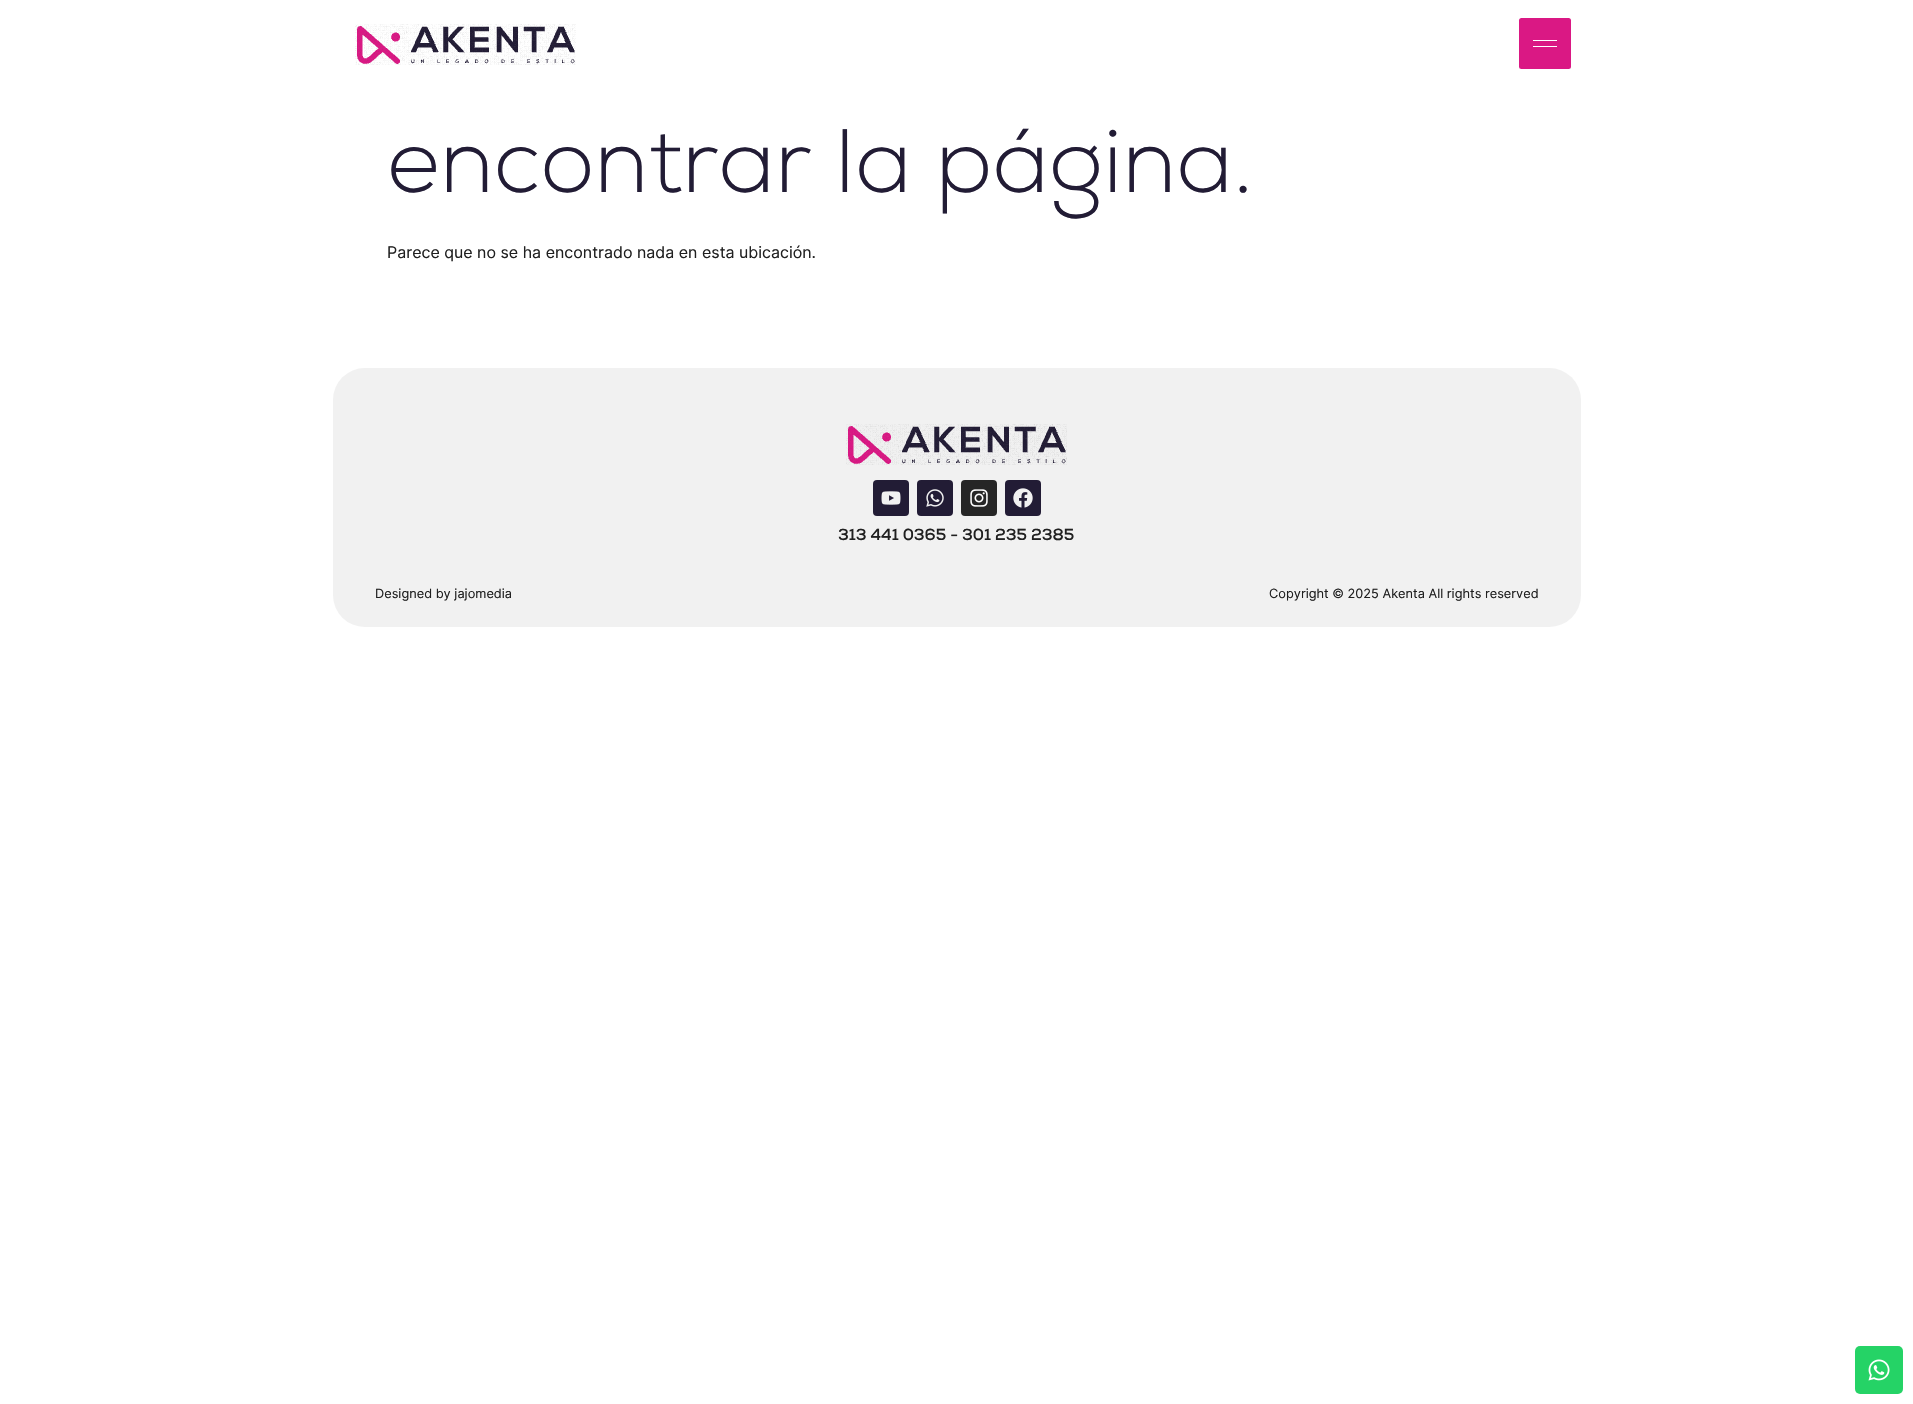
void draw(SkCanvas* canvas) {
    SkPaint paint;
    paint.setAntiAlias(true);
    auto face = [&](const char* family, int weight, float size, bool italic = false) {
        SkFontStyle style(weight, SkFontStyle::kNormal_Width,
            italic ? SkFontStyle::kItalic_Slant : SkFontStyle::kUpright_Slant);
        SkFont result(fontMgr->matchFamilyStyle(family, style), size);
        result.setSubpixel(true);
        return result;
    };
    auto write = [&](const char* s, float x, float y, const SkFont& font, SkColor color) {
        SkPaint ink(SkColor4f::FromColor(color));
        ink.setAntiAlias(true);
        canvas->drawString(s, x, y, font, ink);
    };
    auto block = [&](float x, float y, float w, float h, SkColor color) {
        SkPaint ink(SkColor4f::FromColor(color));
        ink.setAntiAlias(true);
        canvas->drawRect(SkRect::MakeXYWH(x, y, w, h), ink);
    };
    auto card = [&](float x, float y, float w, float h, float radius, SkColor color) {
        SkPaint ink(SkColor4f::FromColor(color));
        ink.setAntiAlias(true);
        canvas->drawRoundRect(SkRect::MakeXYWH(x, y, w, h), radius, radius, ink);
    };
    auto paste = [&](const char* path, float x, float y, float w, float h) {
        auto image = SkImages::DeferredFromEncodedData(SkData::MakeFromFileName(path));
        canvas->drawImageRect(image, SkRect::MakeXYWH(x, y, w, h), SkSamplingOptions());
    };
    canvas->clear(SK_ColorWHITE);
    paste("pic1.png", 355, 24, 221, 41);
    card(1519, 18, 52, 51, 2.5f, SkColorSetRGB(218, 24, 132));
    block(1533, 40, 24, 1, SK_ColorWHITE);
    block(1533, 46, 24, 1, SK_ColorWHITE);
    auto kFont1 = face("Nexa", 300, 89.75f);
    write("encontrar la página.", 387, 192, kFont1, SkColorSetRGB(34, 28, 53));
    auto kFont2 = face("Inter", 400, 16);
    write("Parece que no se ha encontrado nada en esta ubicación.", 387, 258, kFont2, SkColorSetRGB(32, 32, 32));
    card(333, 368, 1248, 259, 32, SkColorSetRGB(241, 241, 241));
    paste("pic2.png", 846, 424, 221, 41);
    card(873, 480, 36, 36, 4, SkColorSetRGB(34, 28, 53));
    paste("pic3.png", 881, 491, 20, 14);
    card(917, 480, 36, 36, 4, SkColorSetRGB(34, 28, 53));
    paste("pic4.png", 926, 489, 18, 18);
    card(961, 480, 36, 36, 4, SkColorSetRGB(38, 38, 38));
    paste("pic5.png", 970, 489, 18, 18);
    card(1005, 480, 36, 36, 4, SkColorSetRGB(34, 28, 53));
    paste("pic6.png", 1013, 488, 20, 20);
    auto kFont3 = face("Nexa", 700, 16);
    write("313 441 0365 - 301 235 2385", 838, 540, kFont3, SkColorSetRGB(32, 32, 32));
    auto kFont4 = face("Inter", 400, 12.8f);
    write("Designed by jajomedia", 375, 598, kFont4, SkColorSetRGB(32, 32, 32));
    write("Copyright © 2025 Akenta All rights reserved", 1269, 598, kFont4, SkColorSetRGB(32, 32, 32));
    card(1855, 1346, 48, 48, 5, SkColorSetRGB(37, 211, 102));
    paste("pic7.png", 1868, 1359, 22, 22);
}
